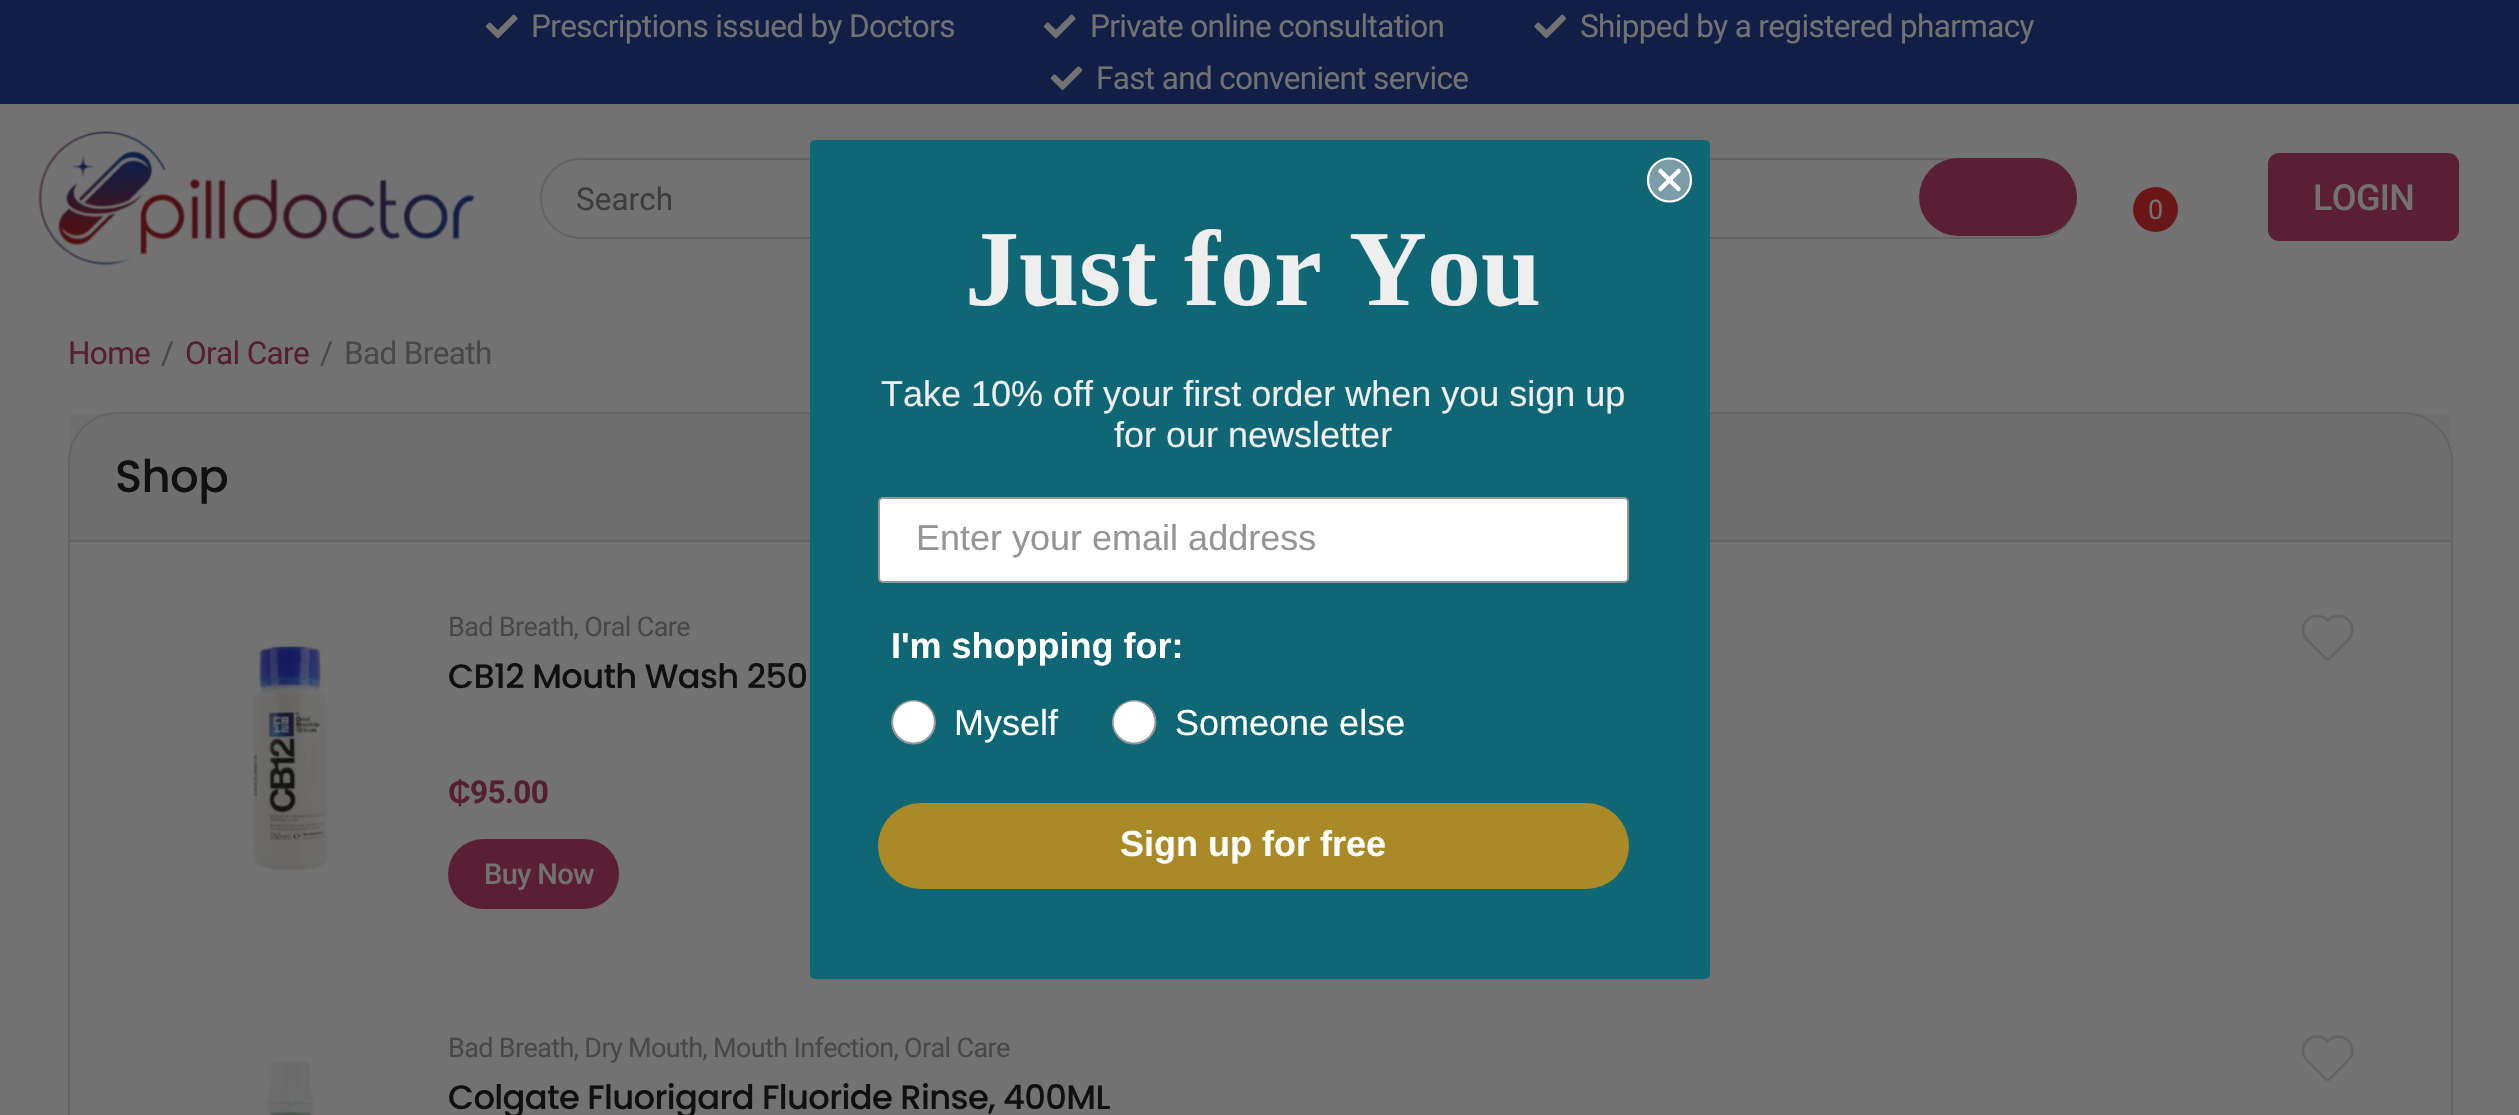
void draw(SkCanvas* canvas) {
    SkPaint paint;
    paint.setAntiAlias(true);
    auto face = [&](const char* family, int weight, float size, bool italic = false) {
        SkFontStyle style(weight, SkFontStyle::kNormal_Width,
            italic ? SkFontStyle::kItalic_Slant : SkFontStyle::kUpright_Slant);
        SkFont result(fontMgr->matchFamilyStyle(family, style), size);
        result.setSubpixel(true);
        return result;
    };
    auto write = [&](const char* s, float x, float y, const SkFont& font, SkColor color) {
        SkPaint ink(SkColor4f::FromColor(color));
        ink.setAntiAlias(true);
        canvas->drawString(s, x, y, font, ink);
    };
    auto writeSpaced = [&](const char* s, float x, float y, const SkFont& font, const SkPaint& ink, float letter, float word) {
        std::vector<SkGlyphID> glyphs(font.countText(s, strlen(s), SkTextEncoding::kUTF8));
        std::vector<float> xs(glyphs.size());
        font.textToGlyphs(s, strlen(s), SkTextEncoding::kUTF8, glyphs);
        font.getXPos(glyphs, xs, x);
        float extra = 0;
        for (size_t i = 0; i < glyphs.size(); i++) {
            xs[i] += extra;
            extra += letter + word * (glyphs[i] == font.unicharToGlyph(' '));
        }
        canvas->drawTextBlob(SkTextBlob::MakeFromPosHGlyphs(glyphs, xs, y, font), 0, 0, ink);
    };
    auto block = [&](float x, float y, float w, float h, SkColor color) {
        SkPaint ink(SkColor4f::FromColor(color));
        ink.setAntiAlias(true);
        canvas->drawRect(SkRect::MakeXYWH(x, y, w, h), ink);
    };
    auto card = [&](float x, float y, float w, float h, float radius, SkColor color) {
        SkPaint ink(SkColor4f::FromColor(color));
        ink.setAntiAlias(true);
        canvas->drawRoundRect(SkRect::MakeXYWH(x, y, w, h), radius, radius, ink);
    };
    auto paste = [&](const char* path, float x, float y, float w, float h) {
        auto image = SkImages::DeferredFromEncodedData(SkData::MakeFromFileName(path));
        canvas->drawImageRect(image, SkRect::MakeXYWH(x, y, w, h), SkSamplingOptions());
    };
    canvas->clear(SkColorSetRGB(114, 114, 114));
    block(0, 0, 2519, 104, SkColorSetRGB(17, 30, 69));
    paste("pic1.png", 486, 14, 32, 25);
    auto kFont1 = face("Roboto", 400, 31.5f);
    paint.setColor(SkColorSetRGB(114, 114, 114));
    writeSpaced("Prescriptions issued by Doctors", 531, 37, kFont1, paint, -0.65f, 0);
    paste("pic1.png", 1044, 14, 32, 25);
    writeSpaced("Private online consultation", 1090, 37, kFont1, paint, -0.65f, 0);
    paste("pic2.png", 1534, 14, 32, 25);
    writeSpaced("Shipped by a registered pharmacy", 1580, 37, kFont1, paint, -0.65f, 0);
    paste("pic3.png", 1050, 66, 33, 24);
    writeSpaced("Fast and convenient service", 1096, 89, kFont1, paint, -0.65f, 0);
    paste("pic4.png", 38, 130, 437, 136);
    paint.setStyle(SkPaint::kStroke_Style);
    paint.setStrokeWidth(2);
    paint.setColor(SkColorSetRGB(99, 99, 99));
    canvas->drawRoundRect(SkRect::MakeXYWH(541, 159, 1535, 79), 39.5f, 39.5f, paint);
    write("Search", 576, 210, kFont1, SkColorSetRGB(60, 60, 60));
    card(1919, 158, 158, 78, 39, SkColorSetRGB(90, 31, 52));
    paint.setStyle(SkPaint::kFill_Style);
    paint.setColor(SkColorSetRGB(106, 22, 22));
    canvas->drawCircle(2155.5f, 209.5f, 22.5f, paint);
    auto kFont2 = face("Roboto", 400, 27);
    paint.setColor(SkColorSetRGB(114, 114, 114));
    writeSpaced("0", 2148, 219, kFont2, paint, -0.65f, 0);
    card(2268, 153, 191, 88, 11, SkColorSetRGB(90, 31, 52));
    auto kFont3 = face("Roboto", 500, 36);
    writeSpaced("LOGIN", 2313, 210, kFont3, paint, -0.65f, 0);
    paint.setColor(SkColorSetRGB(86, 30, 50));
    writeSpaced("Home", 68, 364, kFont1, paint, -0.65f, 0);
    paint.setColor(SkColorSetRGB(72, 72, 72));
    writeSpaced("/", 161, 364, kFont1, paint, -0.65f, 0);
    paint.setColor(SkColorSetRGB(86, 30, 50));
    writeSpaced("Oral Care", 185, 364, kFont1, paint, -0.65f, 0);
    paint.setColor(SkColorSetRGB(72, 72, 72));
    writeSpaced("/", 320, 364, kFont1, paint, -0.65f, 0);
    writeSpaced("Bad Breath", 344, 364, kFont1, paint, -0.65f, 0);
    paint.setStyle(SkPaint::kStroke_Style);
    paint.setColor(SkColorSetRGB(101, 101, 101));
    canvas->drawRoundRect(SkRect::MakeXYWH(69, 413, 2383, 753), 49, 49, paint);
    block(70, 414, 2380, 126, SkColorSetARGB(8, 12, 12, 12));
    block(70, 540, 2380, 2, SkColorSetRGB(98, 98, 98));
    auto kFont4 = face("Poppins", 500, 45);
    paint.setStyle(SkPaint::kFill_Style);
    paint.setColor(SkColorSetRGB(16, 16, 16));
    writeSpaced("Shop", 115, 492, kFont4, paint, -0.65f, 0);
    paste("pic5.png", 246, 634, 82, 238);
    paint.setColor(SkColorSetRGB(72, 72, 72));
    writeSpaced("Bad Breath, Oral Care", 448, 636, kFont2, paint, -0.65f, 0);
    auto kFont5 = face("Poppins", 500, 33.75f);
    paint.setColor(SkColorSetRGB(16, 16, 16));
    writeSpaced("CB12 Mouth Wash 250", 448, 688, kFont5, paint, -0.65f, 0);
    paste("pic6.png", 2301, 614, 53, 47);
    auto kFont6 = face("Liberation Sans", 700, 31.5f);
    paint.setColor(SkColorSetRGB(86, 30, 50));
    writeSpaced("₵", 448, 803, kFont6, paint, -0.65f, 0);
    auto kFont7 = face("Roboto", 700, 31.5f);
    writeSpaced("95.00", 470, 803, kFont7, paint, -0.65f, 0);
    card(448, 839, 171, 70, 35, SkColorSetRGB(90, 31, 52));
    auto kFont8 = face("Roboto", 500, 29);
    paint.setColor(SkColorSetRGB(114, 114, 114));
    writeSpaced("Buy Now", 484, 884, kFont8, paint, -0.65f, 0);
    paste("pic7.png", 265, 1060, 50, 55);
    paint.setColor(SkColorSetRGB(72, 72, 72));
    writeSpaced("Bad Breath, Dry Mouth, Mouth Infection, Oral Care", 448, 1057, kFont2, paint, -0.65f, 0);
    paint.setColor(SkColorSetRGB(16, 16, 16));
    writeSpaced("Colgate Fluorigard Fluoride Rinse, 400ML", 448, 1109, kFont5, paint, -0.65f, 0);
    paste("pic8.png", 2301, 1035, 53, 47);
    card(810, 140, 900, 839, 5, SkColorSetRGB(15, 102, 116));
    paint.setColor(SkColorSetRGB(122, 157, 167));
    canvas->drawCircle(1669.5f, 180, 21.5f, paint);
    paint.setStyle(SkPaint::kStroke_Style);
    paint.setStrokeWidth(2.2f);
    paint.setColor(SK_ColorWHITE);
    canvas->drawCircle(1669.5f, 180, 21.5f, paint);
    paint.setStrokeWidth(4.5f);
    paint.setStrokeCap(SkPaint::kRound_Cap);
    paint.setStrokeJoin(SkPaint::kRound_Join);
    canvas->drawPath(SkPathBuilder().moveTo(1660.5f, 171).lineTo(1678.5f, 189).moveTo(1660.5f, 189).lineTo(1678.5f, 171).close().detach(), paint);
    auto kFont9 = face("Liberation Serif", 700, 108);
    write("Just for You", 965, 305, kFont9, SkColorSetRGB(238, 238, 238));
    auto kFont10 = face("Liberation Sans", 400, 36);
    write("Take 10% off your first order when you sign up", 881, 406, kFont10, SkColorSetRGB(238, 238, 238));
    write("for our newsletter", 1114, 447, kFont10, SkColorSetRGB(238, 238, 238));
    paint.setStyle(SkPaint::kFill_Style);
    canvas->drawRoundRect(SkRect::MakeXYWH(879, 498, 749, 84), 4, 4, paint);
    paint.setStyle(SkPaint::kStroke_Style);
    paint.setStrokeWidth(2);
    paint.setStrokeCap(SkPaint::kButt_Cap);
    paint.setStrokeJoin(SkPaint::kMiter_Join);
    paint.setColor(SkColorSetRGB(148, 149, 150));
    canvas->drawRoundRect(SkRect::MakeXYWH(879, 498, 749, 84), 4, 4, paint);
    write("Enter your email address", 916, 550, kFont10, SkColorSetRGB(148, 149, 150));
    auto kFont11 = face("Liberation Sans", 700, 36);
    write("I'm shopping for:", 891, 658, kFont11, SK_ColorWHITE);
    paint.setStyle(SkPaint::kFill_Style);
    paint.setColor(SK_ColorWHITE);
    canvas->drawCircle(913.5f, 722, 21.5f, paint);
    canvas->save();
    canvas->clipPath(SkPathBuilder().moveTo(913.5f, 700).cubicTo(926, 700, 936, 710, 936, 722.5f).cubicTo(936, 735, 926, 745, 913.5f, 745).cubicTo(901, 745, 891, 735, 891, 722.5f).cubicTo(891, 710, 901, 700, 913.5f, 700).close().detach(), true);
    paint.setStyle(SkPaint::kStroke_Style);
    paint.setStrokeWidth(2.2f);
    paint.setColor(SkColorSetRGB(148, 149, 150));
    canvas->drawCircle(913.5f, 722, 21.5f, paint);
    canvas->restore();
    write("Myself", 954, 735, kFont10, SK_ColorWHITE);
    paint.setStyle(SkPaint::kFill_Style);
    paint.setColor(SK_ColorWHITE);
    canvas->drawCircle(1134, 722, 21.5f, paint);
    canvas->save();
    canvas->clipPath(SkPathBuilder().moveTo(1134.5f, 700).cubicTo(1147, 700, 1157, 710, 1157, 722.5f).cubicTo(1157, 735, 1147, 745, 1134.5f, 745).cubicTo(1122, 745, 1112, 735, 1112, 722.5f).cubicTo(1112, 710, 1122, 700, 1134.5f, 700).close().detach(), true);
    paint.setStyle(SkPaint::kStroke_Style);
    paint.setColor(SkColorSetRGB(148, 149, 150));
    canvas->drawCircle(1134, 722, 21.5f, paint);
    canvas->restore();
    write("Someone else", 1175, 735, kFont10, SK_ColorWHITE);
    card(878, 803, 751, 86, 43, SkColorSetRGB(169, 138, 39));
    write("Sign up for free", 1120, 856, kFont11, SK_ColorWHITE);
}
